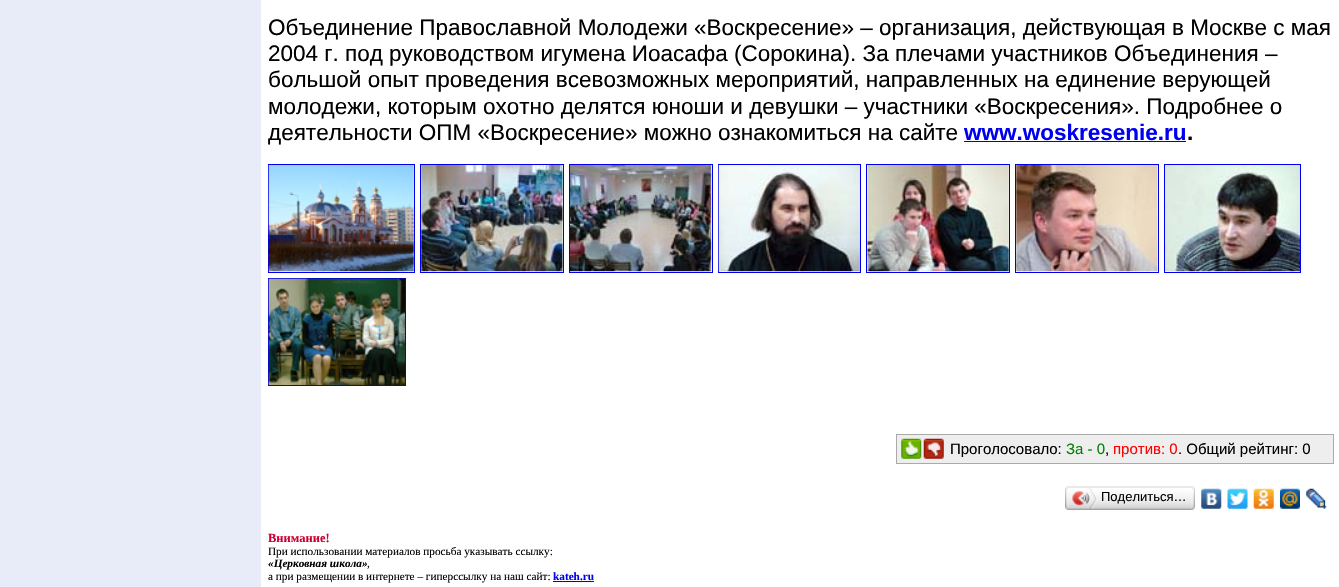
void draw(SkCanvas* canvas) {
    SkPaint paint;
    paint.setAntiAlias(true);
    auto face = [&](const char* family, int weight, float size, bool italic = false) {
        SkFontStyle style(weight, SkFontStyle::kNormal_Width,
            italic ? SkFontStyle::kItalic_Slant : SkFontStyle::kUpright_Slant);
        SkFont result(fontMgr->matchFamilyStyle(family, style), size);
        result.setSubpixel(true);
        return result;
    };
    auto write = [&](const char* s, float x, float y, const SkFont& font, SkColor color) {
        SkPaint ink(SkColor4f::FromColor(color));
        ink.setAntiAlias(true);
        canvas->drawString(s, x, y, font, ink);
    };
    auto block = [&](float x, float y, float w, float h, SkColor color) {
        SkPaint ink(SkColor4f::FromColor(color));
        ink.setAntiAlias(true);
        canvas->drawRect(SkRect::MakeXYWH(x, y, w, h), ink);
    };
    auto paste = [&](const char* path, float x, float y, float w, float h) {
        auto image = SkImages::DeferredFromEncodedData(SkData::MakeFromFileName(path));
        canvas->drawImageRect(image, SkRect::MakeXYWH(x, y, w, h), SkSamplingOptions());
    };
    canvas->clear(SkColorSetRGB(232, 236, 248));
    block(261, 0, 1078, 587, SK_ColorWHITE);
    auto kFont1 = face("Liberation Sans", 400, 22.5f);
    write("Объединение Православной Молодежи «Воскресение» – организация, действующая в Москве с мая", 268, 35, kFont1, SK_ColorBLACK);
    write("2004 г. под руководством игумена Иоасафа (Сорокина). За плечами участников Объединения –", 268, 61, kFont1, SK_ColorBLACK);
    write("большой опыт проведения всевозможных мероприятий, направленных на единение верующей", 268, 87, kFont1, SK_ColorBLACK);
    write("молодежи, которым охотно делятся юноши и девушки – участники «Воскресения». Подробнее о", 268, 114, kFont1, SK_ColorBLACK);
    write("деятельности ОПМ «Воскресение» можно ознакомиться на сайте", 268, 140, kFont1, SK_ColorBLACK);
    auto kFont2 = face("Liberation Sans", 700, 22.5f);
    write("www.woskresenie.ru", 964, 140, kFont2, SkColorSetRGB(0, 0, 238));
    write(".", 1187, 140, kFont2, SK_ColorBLACK);
    block(964, 141, 222, 1, SkColorSetRGB(0, 0, 238));
    paint.setStyle(SkPaint::kStroke_Style);
    paint.setStrokeWidth(1);
    paint.setColor(SkColorSetRGB(0, 0, 238));
    canvas->drawRect(SkRect::MakeXYWH(268.5f, 164.5f, 146, 108), paint);
    canvas->drawRect(SkRect::MakeXYWH(420.5f, 164.5f, 143, 108), paint);
    canvas->drawRect(SkRect::MakeXYWH(569.5f, 164.5f, 143, 108), paint);
    canvas->drawRect(SkRect::MakeXYWH(718.5f, 164.5f, 142, 108), paint);
    canvas->drawRect(SkRect::MakeXYWH(866.5f, 164.5f, 143, 108), paint);
    canvas->drawRect(SkRect::MakeXYWH(1015.5f, 164.5f, 143, 108), paint);
    canvas->drawRect(SkRect::MakeXYWH(1164.5f, 164.5f, 136, 108), paint);
    paste("pic1.png", 268, 165, 146, 107);
    paste("pic2.png", 421, 165, 142, 107);
    paste("pic3.png", 570, 165, 142, 107);
    paste("pic4.png", 718, 165, 142, 107);
    paste("pic5.png", 867, 165, 142, 107);
    paste("pic6.png", 1016, 165, 142, 107);
    paste("pic7.png", 1165, 165, 135, 107);
    canvas->drawRect(SkRect::MakeXYWH(268.5f, 278.5f, 137, 107), paint);
    paste("pic8.png", 268, 278, 137, 107);
    paint.setStyle(SkPaint::kFill_Style);
    paint.setColor(SkColorSetRGB(238, 238, 238));
    canvas->drawRect(SkRect::MakeXYWH(896.5f, 434.5f, 437, 29), paint);
    paint.setStyle(SkPaint::kStroke_Style);
    paint.setColor(SkColorSetRGB(170, 170, 170));
    canvas->drawRect(SkRect::MakeXYWH(896.5f, 434.5f, 437, 29), paint);
    paste("pic9.png", 901, 438, 21, 21);
    paste("pic10.png", 923, 438, 21, 21);
    auto kFont3 = face("Liberation Sans", 400, 15);
    write("Проголосовало:", 950, 454, kFont3, SK_ColorBLACK);
    write("За - 0", 1066, 454, kFont3, SkColorSetRGB(0, 128, 0));
    write(",", 1105, 454, kFont3, SK_ColorBLACK);
    write("против: 0", 1113, 454, kFont3, SkColorSetRGB(255, 0, 0));
    write(". Общий рейтинг: 0", 1178, 454, kFont3, SK_ColorBLACK);
    paste("pic11.png", 1068, 486, 124, 24);
    paste("pic12.png", 1065, 486, 4, 24);
    paste("pic13.png", 1072, 487, 26, 22);
    auto kFont4 = face("Liberation Sans", 400, 13);
    write("Поделиться…", 1101, 501, kFont4, SK_ColorBLACK);
    paste("pic14.png", 1191, 486, 4, 24);
    paste("pic15.png", 1201, 488, 21, 21);
    paste("pic16.png", 1227, 488, 21, 21);
    paste("pic17.png", 1253, 488, 21, 21);
    paste("pic18.png", 1280, 488, 20, 21);
    paste("pic19.png", 1306, 488, 21, 21);
    auto kFont5 = face("Liberation Serif", 700, 12.5f);
    write("Внимание!", 268, 542, kFont5, SkColorSetRGB(204, 0, 51));
    auto kFont6 = face("Liberation Serif", 400, 11.25f);
    write("При использовании материалов просьба указывать ссылку:", 268, 555, kFont6, SK_ColorBLACK);
    auto kFont7 = face("Liberation Serif", 700, 11.25f, true);
    write("«Церковная школа»", 268, 567, kFont7, SK_ColorBLACK);
    write(",", 367, 567, kFont6, SK_ColorBLACK);
    write("а при размещении в интернете – гиперссылку на наш сайт:", 268, 580, kFont6, SK_ColorBLACK);
    auto kFont8 = face("Liberation Serif", 700, 11.25f);
    write("kateh.ru", 553, 580, kFont8, SkColorSetRGB(0, 0, 238));
    block(553, 581, 41, 1, SkColorSetRGB(0, 0, 238));
}
